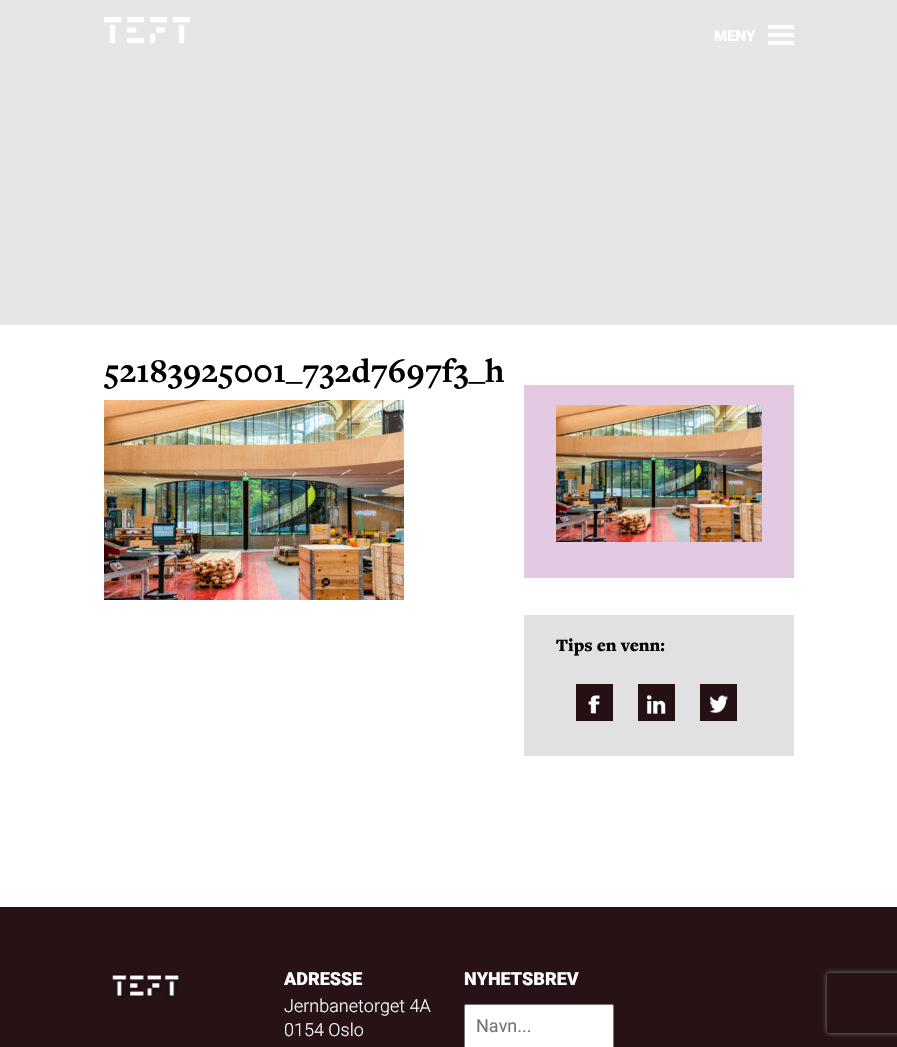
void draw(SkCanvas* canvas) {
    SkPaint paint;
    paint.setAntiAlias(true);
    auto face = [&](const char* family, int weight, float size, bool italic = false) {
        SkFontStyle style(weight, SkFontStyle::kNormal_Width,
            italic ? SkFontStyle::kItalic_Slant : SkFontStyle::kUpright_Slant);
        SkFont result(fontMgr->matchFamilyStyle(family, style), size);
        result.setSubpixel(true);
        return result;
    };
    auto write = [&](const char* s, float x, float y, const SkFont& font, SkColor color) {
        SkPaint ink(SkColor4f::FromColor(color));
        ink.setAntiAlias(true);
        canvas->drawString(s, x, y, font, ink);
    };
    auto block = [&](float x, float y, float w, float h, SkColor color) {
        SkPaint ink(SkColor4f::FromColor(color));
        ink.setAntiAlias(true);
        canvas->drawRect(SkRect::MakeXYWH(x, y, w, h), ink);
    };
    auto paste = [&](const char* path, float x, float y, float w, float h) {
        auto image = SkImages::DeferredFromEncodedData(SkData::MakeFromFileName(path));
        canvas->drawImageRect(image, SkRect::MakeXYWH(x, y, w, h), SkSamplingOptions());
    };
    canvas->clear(SK_ColorWHITE);
    block(0, 0, 897, 325, SkColorSetRGB(230, 230, 230));
    paste("pic1.png", 104, 17, 86, 26);
    auto kFont1 = face("Roboto", 900, 15);
    write("MENY", 714, 41, kFont1, SK_ColorWHITE);
    block(768, 25, 26, 4, SK_ColorWHITE);
    block(768, 33, 26, 4, SK_ColorWHITE);
    block(768, 41, 26, 4, SK_ColorWHITE);
    auto kFont2 = face("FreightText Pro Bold", 700, 34.5f);
    write("52183925001_732d7697f3_h", 104, 382, kFont2, SK_ColorBLACK);
    paste("pic2.png", 104, 400, 300, 200);
    block(524, 385, 270, 193, SkColorSetRGB(227, 201, 225));
    paste("pic3.png", 556, 405, 206, 137);
    block(524, 615, 270, 141, SkColorSetRGB(225, 225, 225));
    auto kFont3 = face("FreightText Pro", 900, 18);
    write("Tips en venn:", 556, 651, kFont3, SK_ColorBLACK);
    block(576, 684, 37, 37, SkColorSetRGB(37, 16, 19));
    paste("pic4.png", 588, 695, 12, 19);
    block(638, 684, 37, 37, SkColorSetRGB(37, 16, 19));
    paste("pic5.png", 647, 695, 19, 19);
    block(700, 684, 37, 37, SkColorSetRGB(37, 16, 19));
    paste("pic6.png", 709, 695, 19, 19);
    block(0, 907, 897, 140, SkColorSetRGB(39, 18, 21));
    paste("pic7.png", 112, 973, 67, 25);
    auto kFont4 = face("Roboto", 900, 18);
    write("ADRESSE", 284, 985, kFont4, SK_ColorWHITE);
    auto kFont5 = face("Roboto", 300, 18);
    write("Jernbanetorget 4A", 284, 1012, kFont5, SK_ColorWHITE);
    write("0154 Oslo", 284, 1036, kFont5, SK_ColorWHITE);
    write("NYHETSBREV", 464, 985, kFont4, SK_ColorWHITE);
    paint.setColor(SK_ColorWHITE);
    canvas->drawRoundRect(SkRect::MakeXYWH(464.5f, 1004.5f, 149, 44), 1.5f, 1.5f, paint);
    paint.setStyle(SkPaint::kStroke_Style);
    paint.setStrokeWidth(1);
    paint.setColor(SkColorSetRGB(118, 118, 118));
    canvas->drawRoundRect(SkRect::MakeXYWH(464.5f, 1004.5f, 149, 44), 1.5f, 1.5f, paint);
    auto kFont6 = face("Roboto", 400, 18);
    write("Navn...", 476, 1032, kFont6, SkColorSetRGB(117, 117, 117));
    canvas->save();
    canvas->clipPath(SkPathBuilder(SkPathFillType::kEvenOdd).moveTo(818, 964).lineTo(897, 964).lineTo(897, 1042).lineTo(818, 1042).close().moveTo(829, 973).lineTo(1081, 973).cubicTo(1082, 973, 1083, 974, 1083, 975).lineTo(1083, 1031).cubicTo(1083, 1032, 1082, 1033, 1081, 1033).lineTo(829, 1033).cubicTo(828, 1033, 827, 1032, 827, 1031).lineTo(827, 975).cubicTo(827, 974, 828, 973, 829, 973).close().detach(), true);
    paint.setStyle(SkPaint::kFill_Style);
    paint.setColor(SkColorSetRGB(128, 128, 128));
    paint.setMaskFilter(SkMaskFilter::MakeBlur(kNormal_SkBlurStyle, 2.5f));
    canvas->drawRoundRect(SkRect::MakeXYWH(827, 973, 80, 60), 2, 2, paint);
    paint.setMaskFilter(nullptr);
    canvas->restore();
}
